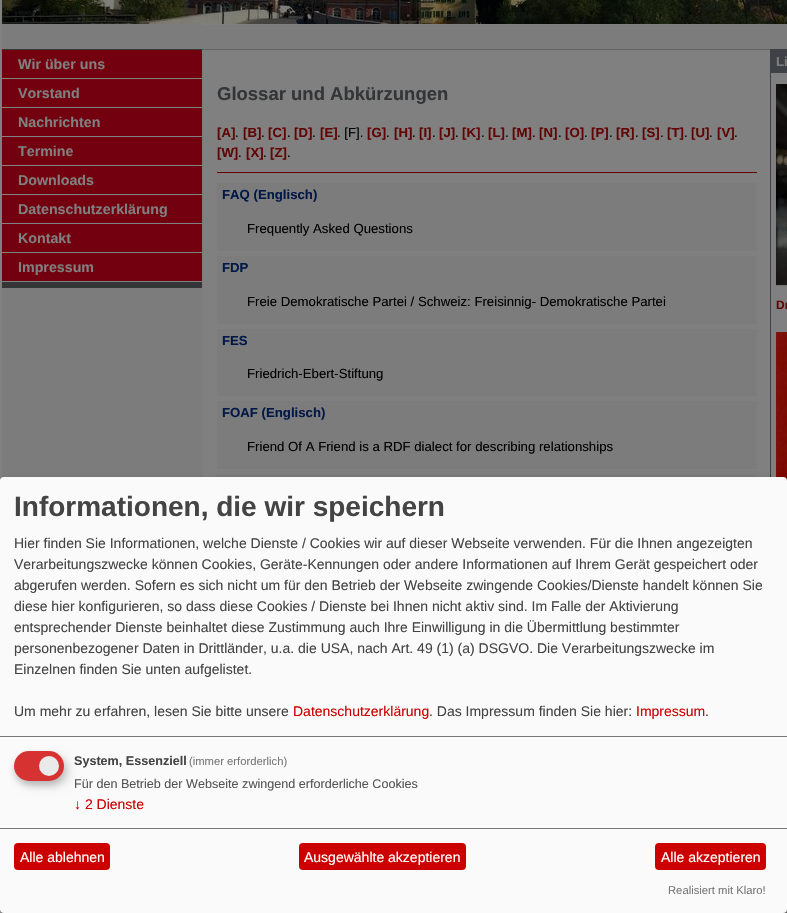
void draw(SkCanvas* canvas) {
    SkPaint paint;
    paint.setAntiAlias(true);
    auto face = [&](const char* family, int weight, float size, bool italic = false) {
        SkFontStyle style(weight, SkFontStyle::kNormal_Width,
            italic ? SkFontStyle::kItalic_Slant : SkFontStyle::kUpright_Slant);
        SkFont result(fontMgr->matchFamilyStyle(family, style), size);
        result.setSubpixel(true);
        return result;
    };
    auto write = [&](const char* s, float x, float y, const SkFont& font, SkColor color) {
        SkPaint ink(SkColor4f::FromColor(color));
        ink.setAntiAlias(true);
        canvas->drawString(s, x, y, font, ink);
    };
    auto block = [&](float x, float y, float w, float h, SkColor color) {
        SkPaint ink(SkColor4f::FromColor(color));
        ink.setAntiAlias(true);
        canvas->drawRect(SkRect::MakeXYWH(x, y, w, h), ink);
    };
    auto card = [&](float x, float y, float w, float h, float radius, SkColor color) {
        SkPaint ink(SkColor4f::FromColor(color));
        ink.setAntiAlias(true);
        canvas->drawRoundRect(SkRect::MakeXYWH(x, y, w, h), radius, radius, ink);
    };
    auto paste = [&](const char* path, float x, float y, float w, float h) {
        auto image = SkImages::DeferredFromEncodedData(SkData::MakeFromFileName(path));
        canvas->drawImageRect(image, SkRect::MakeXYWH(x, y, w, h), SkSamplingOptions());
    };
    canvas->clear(SK_ColorWHITE);
    paste("pic1.png", 2, 24, 785, 886);
    paint.setColor(SkColorSetRGB(120, 120, 120));
    canvas->drawPath(SkPathBuilder().moveTo(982, 913).lineTo(0, 913).lineTo(2, 910).lineTo(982, 910).close().detach(), paint);
    paint.setColor(SkColorSetRGB(128, 128, 128));
    canvas->drawPath(SkPathBuilder().moveTo(0, 913).lineTo(0, -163).lineTo(2, -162).lineTo(2, 910).close().detach(), paint);
    paste("pic2.png", 2, 0, 785, 24);
    block(203, 25, 567, 24, SkColorSetRGB(124, 124, 124));
    block(202, 49, 568, 1, SkColorSetRGB(98, 98, 98));
    block(2, 49, 200, 1, SkColorSetRGB(51, 53, 55));
    block(2, 282, 200, 6, SkColorSetRGB(51, 53, 55));
    block(2, 50, 200, 28, SkColorSetRGB(114, 0, 14));
    block(2, 78, 200, 1, SkColorSetRGB(128, 128, 128));
    auto kFont1 = face("Liberation Sans", 700, 14.25f);
    write("Wir über uns", 18, 69, kFont1, SkColorSetRGB(128, 128, 128));
    block(2, 79, 200, 28, SkColorSetRGB(114, 0, 14));
    block(2, 107, 200, 1, SkColorSetRGB(128, 128, 128));
    write("Vorstand", 18, 98, kFont1, SkColorSetRGB(128, 128, 128));
    block(2, 108, 200, 28, SkColorSetRGB(114, 0, 14));
    block(2, 136, 200, 1, SkColorSetRGB(128, 128, 128));
    write("Nachrichten", 18, 127, kFont1, SkColorSetRGB(128, 128, 128));
    block(2, 137, 200, 28, SkColorSetRGB(114, 0, 14));
    block(2, 165, 200, 1, SkColorSetRGB(128, 128, 128));
    write("Termine", 18, 156, kFont1, SkColorSetRGB(128, 128, 128));
    block(2, 166, 200, 28, SkColorSetRGB(114, 0, 14));
    block(2, 194, 200, 1, SkColorSetRGB(128, 128, 128));
    write("Downloads", 18, 185, kFont1, SkColorSetRGB(128, 128, 128));
    block(2, 195, 200, 28, SkColorSetRGB(114, 0, 14));
    block(2, 223, 200, 1, SkColorSetRGB(128, 128, 128));
    write("Datenschutzerklärung", 18, 214, kFont1, SkColorSetRGB(128, 128, 128));
    block(2, 224, 200, 28, SkColorSetRGB(114, 0, 14));
    block(2, 252, 200, 1, SkColorSetRGB(128, 128, 128));
    write("Kontakt", 18, 243, kFont1, SkColorSetRGB(128, 128, 128));
    block(2, 253, 200, 28, SkColorSetRGB(114, 0, 14));
    block(2, 281, 200, 1, SkColorSetRGB(128, 128, 128));
    write("Impressum", 18, 272, kFont1, SkColorSetRGB(128, 128, 128));
    auto kFont2 = face("Liberation Sans", 700, 18.5f);
    write("Glossar und Abkürzungen", 217, 100, kFont2, SkColorSetRGB(51, 53, 55));
    auto kFont3 = face("Liberation Sans", 700, 13.2f);
    write("[A]", 217, 137, kFont3, SkColorSetRGB(96, 4, 4));
    auto kFont4 = face("Liberation Sans", 400, 13.2f);
    write(".", 235, 137, kFont4, SK_ColorBLACK);
    write("[B]", 243, 137, kFont3, SkColorSetRGB(96, 4, 4));
    write(".", 261, 137, kFont4, SK_ColorBLACK);
    write("[C]", 268, 137, kFont3, SkColorSetRGB(96, 4, 4));
    write(".", 287, 137, kFont4, SK_ColorBLACK);
    write("[D]", 294, 137, kFont3, SkColorSetRGB(96, 4, 4));
    write(".", 312, 137, kFont4, SK_ColorBLACK);
    write("[E]", 320, 137, kFont3, SkColorSetRGB(96, 4, 4));
    write(". [F].", 337, 137, kFont4, SK_ColorBLACK);
    write("[G]", 367, 137, kFont3, SkColorSetRGB(96, 4, 4));
    write(".", 386, 137, kFont4, SK_ColorBLACK);
    write("[H]", 394, 137, kFont3, SkColorSetRGB(96, 4, 4));
    write(".", 412, 137, kFont4, SK_ColorBLACK);
    write("[I]", 419, 137, kFont3, SkColorSetRGB(96, 4, 4));
    write(".", 432, 137, kFont4, SK_ColorBLACK);
    write("[J]", 439, 137, kFont3, SkColorSetRGB(96, 4, 4));
    write(".", 455, 137, kFont4, SK_ColorBLACK);
    write("[K]", 462, 137, kFont3, SkColorSetRGB(96, 4, 4));
    write(".", 481, 137, kFont4, SK_ColorBLACK);
    write("[L]", 488, 137, kFont3, SkColorSetRGB(96, 4, 4));
    write(".", 505, 137, kFont4, SK_ColorBLACK);
    write("[M]", 512, 137, kFont3, SkColorSetRGB(96, 4, 4));
    write(".", 532, 137, kFont4, SK_ColorBLACK);
    write("[N]", 539, 137, kFont3, SkColorSetRGB(96, 4, 4));
    write(".", 558, 137, kFont4, SK_ColorBLACK);
    write("[O]", 565, 137, kFont3, SkColorSetRGB(96, 4, 4));
    write(".", 584, 137, kFont4, SK_ColorBLACK);
    write("[P]", 591, 137, kFont3, SkColorSetRGB(96, 4, 4));
    write(".", 609, 137, kFont4, SK_ColorBLACK);
    write("[R]", 616, 137, kFont3, SkColorSetRGB(96, 4, 4));
    write(".", 635, 137, kFont4, SK_ColorBLACK);
    write("[S]", 642, 137, kFont3, SkColorSetRGB(96, 4, 4));
    write(".", 660, 137, kFont4, SK_ColorBLACK);
    write("[T]", 667, 137, kFont3, SkColorSetRGB(96, 4, 4));
    write(".", 684, 137, kFont4, SK_ColorBLACK);
    write("[U]", 691, 137, kFont3, SkColorSetRGB(96, 4, 4));
    write(".", 709, 137, kFont4, SK_ColorBLACK);
    write("[V]", 717, 137, kFont3, SkColorSetRGB(96, 4, 4));
    write(".", 734, 137, kFont4, SK_ColorBLACK);
    write("[W]", 217, 157, kFont3, SkColorSetRGB(96, 4, 4));
    write(".", 238, 157, kFont4, SK_ColorBLACK);
    write("[X]", 246, 157, kFont3, SkColorSetRGB(96, 4, 4));
    write(".", 263, 157, kFont4, SK_ColorBLACK);
    write("[Z]", 270, 157, kFont3, SkColorSetRGB(96, 4, 4));
    write(".", 287, 157, kFont4, SK_ColorBLACK);
    block(217, 172, 540, 1, SkColorSetRGB(102, 0, 0));
    block(217, 183, 540, 68, SkColorSetRGB(124, 124, 124));
    write("FAQ (Englisch)", 222, 199, kFont3, SkColorSetRGB(1, 23, 70));
    write("Frequently Asked Questions", 247, 233, kFont4, SK_ColorBLACK);
    block(217, 256, 540, 68, SkColorSetRGB(124, 124, 124));
    write("FDP", 222, 272, kFont3, SkColorSetRGB(1, 23, 70));
    write("Freie Demokratische Partei / Schweiz: Freisinnig- Demokratische Partei", 247, 306, kFont4, SK_ColorBLACK);
    block(217, 329, 540, 67, SkColorSetRGB(124, 124, 124));
    write("FES", 222, 345, kFont3, SkColorSetRGB(1, 23, 70));
    write("Friedrich-Ebert-Stiftung", 247, 378, kFont4, SK_ColorBLACK);
    block(217, 401, 540, 68, SkColorSetRGB(124, 124, 124));
    write("FOAF (Englisch)", 222, 417, kFont3, SkColorSetRGB(1, 23, 70));
    write("Friend Of A Friend is a RDF dialect for describing relationships", 247, 451, kFont4, SK_ColorBLACK);
    block(217, 474, 540, 3, SkColorSetRGB(124, 124, 124));
    block(771, 73, 16, 404, SkColorSetRGB(128, 128, 128));
    paint.setStyle(SkPaint::kStroke_Style);
    paint.setStrokeWidth(1);
    paint.setColor(SkColorSetRGB(62, 65, 69));
    canvas->drawRect(SkRect::MakeXYWH(770.5f, 49.5f, 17, 501), paint);
    block(771, 50, 16, 23, SkColorSetRGB(62, 65, 69));
    write("Li", 776, 66, kFont3, SkColorSetRGB(128, 128, 128));
    paste("pic3.png", 776, 84, 11, 202);
    auto kFont5 = face("Liberation Sans", 700, 12);
    write("Dr", 776, 309, kFont5, SkColorSetRGB(96, 4, 4));
    paste("pic4.png", 776, 332, 11, 149);
    paint.setStyle(SkPaint::kFill_Style);
    paint.setColor(SkColorSetARGB(48, 0, 0, 0));
    paint.setMaskFilter(SkMaskFilter::MakeBlur(kNormal_SkBlurStyle, 5));
    canvas->drawRoundRect(SkRect::MakeXYWH(5, 482, 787, 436), 4, 4, paint);
    paint.setMaskFilter(nullptr);
    paint.setColor(SkColorSetARGB(51, 0, 0, 0));
    paint.setMaskFilter(SkMaskFilter::MakeBlur(kNormal_SkBlurStyle, 3));
    canvas->drawRoundRect(SkRect::MakeXYWH(0, 481, 787, 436), 4, 4, paint);
    paint.setMaskFilter(nullptr);
    card(0, 477, 787, 436, 4, SkColorSetRGB(250, 250, 250));
    block(0, 736, 787, 1, SkColorSetRGB(119, 119, 119));
    auto kFont6 = face("Liberation Sans", 700, 28);
    write("Informationen, die wir speichern", 14, 516, kFont6, SkColorSetRGB(68, 68, 68));
    auto kFont7 = face("Liberation Sans", 400, 14);
    write("Hier finden Sie Informationen, welche Dienste / Cookies wir auf dieser Webseite verwenden. Für die Ihnen angezeigten", 14, 548, kFont7, SkColorSetRGB(68, 68, 68));
    write("Verarbeitungszwecke können Cookies, Geräte-Kennungen oder andere Informationen auf Ihrem Gerät gespeichert oder", 14, 569, kFont7, SkColorSetRGB(68, 68, 68));
    write("abgerufen werden. Sofern es sich nicht um für den Betrieb der Webseite zwingende Cookies/Dienste handelt können Sie", 14, 590, kFont7, SkColorSetRGB(68, 68, 68));
    write("diese hier konfigurieren, so dass diese Cookies / Dienste bei Ihnen nicht aktiv sind. Im Falle der Aktivierung", 14, 611, kFont7, SkColorSetRGB(68, 68, 68));
    write("entsprechender Dienste beinhaltet diese Zustimmung auch Ihre Einwilligung in die Übermittlung bestimmter", 14, 632, kFont7, SkColorSetRGB(68, 68, 68));
    write("personenbezogener Daten in Drittländer, u.a. die USA, nach Art. 49 (1) (a) DSGVO. Die Verarbeitungszwecke im", 14, 653, kFont7, SkColorSetRGB(68, 68, 68));
    write("Einzelnen finden Sie unten aufgelistet.", 14, 674, kFont7, SkColorSetRGB(68, 68, 68));
    write("Um mehr zu erfahren, lesen Sie bitte unsere", 14, 716, kFont7, SkColorSetRGB(68, 68, 68));
    write("Datenschutzerklärung", 293, 716, kFont7, SkColorSetRGB(205, 0, 0));
    write(". Das Impressum finden Sie hier:", 429, 716, kFont7, SkColorSetRGB(68, 68, 68));
    write("Impressum", 636, 716, kFont7, SkColorSetRGB(205, 0, 0));
    write(".", 705, 716, kFont7, SkColorSetRGB(68, 68, 68));
    paint.setColor(SkColorSetARGB(38, 0, 0, 0));
    paint.setMaskFilter(SkMaskFilter::MakeBlur(kNormal_SkBlurStyle, 5));
    canvas->drawRoundRect(SkRect::MakeXYWH(19, 756, 50, 30), 15, 15, paint);
    paint.setMaskFilter(nullptr);
    paint.setColor(SkColorSetARGB(51, 50, 50, 50));
    paint.setMaskFilter(SkMaskFilter::MakeBlur(kNormal_SkBlurStyle, 3));
    canvas->drawRoundRect(SkRect::MakeXYWH(14, 755, 50, 30), 15, 15, paint);
    paint.setMaskFilter(nullptr);
    card(14, 751, 50, 30, 15, SkColorSetRGB(214, 50, 50));
    paint.setColor(SkColorSetRGB(234, 234, 234));
    canvas->drawCircle(49, 766, 10, paint);
    auto kFont8 = face("Liberation Sans", 700, 12.6f);
    write("System, Essenziell", 74, 765, kFont8, SkColorSetRGB(68, 68, 68));
    auto kFont9 = face("Liberation Sans", 400, 11.25f);
    write("(immer erforderlich)", 189, 765, kFont9, SkColorSetRGB(119, 119, 119));
    auto kFont10 = face("Liberation Sans", 400, 12.6f);
    write("Für den Betrieb der Webseite zwingend erforderliche Cookies", 74, 788, kFont10, SkColorSetRGB(85, 85, 85));
    write("↓ 2 Dienste", 74, 809, kFont7, SkColorSetRGB(205, 0, 0));
    block(0, 828, 787, 1, SkColorSetRGB(119, 119, 119));
    card(14, 843, 96, 27, 4, SkColorSetRGB(205, 0, 0));
    write("Alle ablehnen", 20, 862, kFont7, SK_ColorWHITE);
    card(299, 843, 167, 27, 4, SkColorSetRGB(205, 0, 0));
    write("Ausgewählte akzeptieren", 304, 862, kFont7, SK_ColorWHITE);
    card(655, 843, 111, 27, 4, SkColorSetRGB(205, 0, 0));
    write("Alle akzeptieren", 661, 862, kFont7, SK_ColorWHITE);
    write("Realisiert mit Klaro!", 668, 894, kFont9, SkColorSetRGB(119, 119, 119));
}
